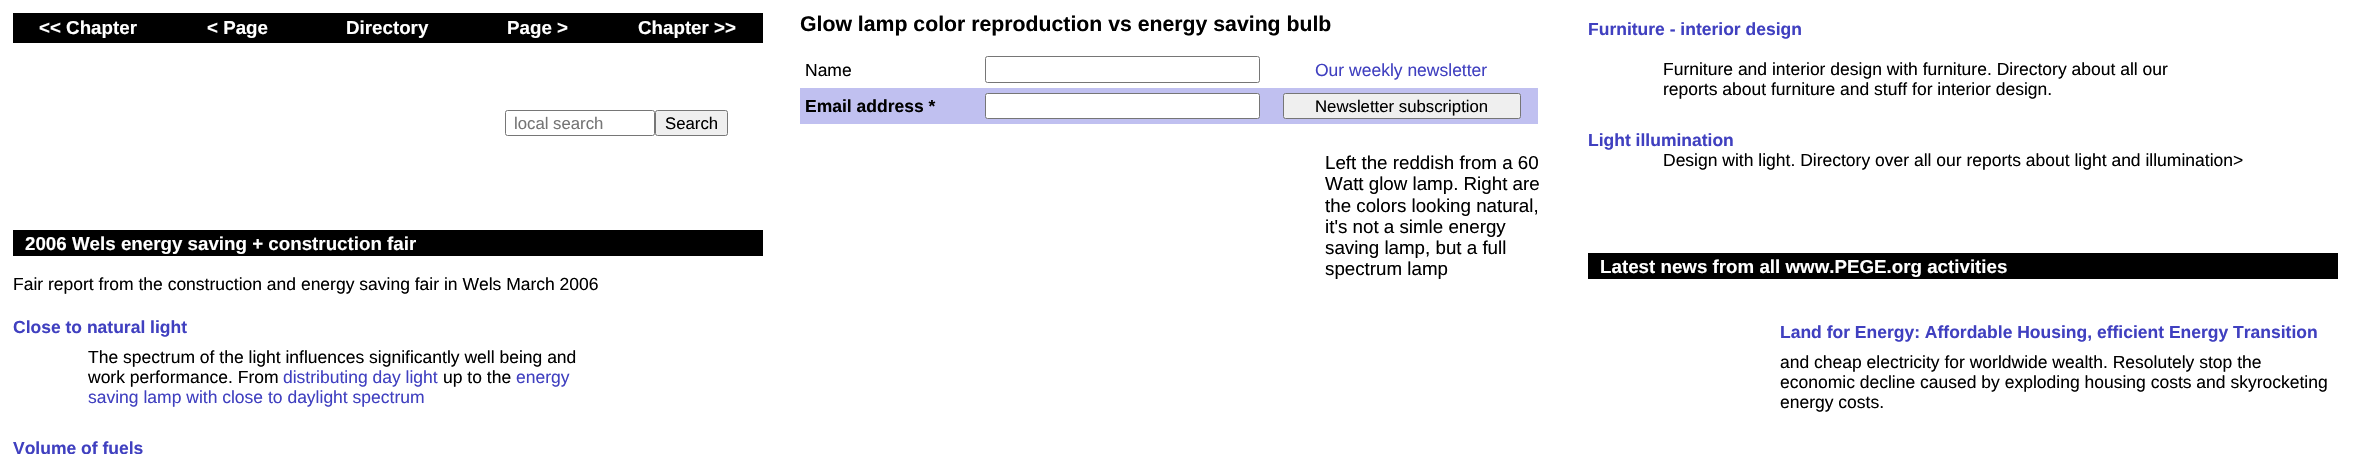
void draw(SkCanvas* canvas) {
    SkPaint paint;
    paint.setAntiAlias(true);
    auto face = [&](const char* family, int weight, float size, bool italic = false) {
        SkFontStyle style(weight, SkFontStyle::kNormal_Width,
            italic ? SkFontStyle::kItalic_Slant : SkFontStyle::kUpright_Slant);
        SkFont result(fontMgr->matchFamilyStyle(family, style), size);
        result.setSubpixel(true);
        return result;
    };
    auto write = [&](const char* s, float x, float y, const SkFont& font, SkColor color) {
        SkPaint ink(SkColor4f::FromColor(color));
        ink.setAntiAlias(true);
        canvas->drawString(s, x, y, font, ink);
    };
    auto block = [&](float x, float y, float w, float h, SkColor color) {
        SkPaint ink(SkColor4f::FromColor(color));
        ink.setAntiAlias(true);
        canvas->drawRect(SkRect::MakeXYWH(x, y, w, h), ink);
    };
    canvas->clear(SK_ColorWHITE);
    block(13, 13, 750, 30, SK_ColorBLACK);
    auto kFont1 = face("Liberation Sans", 700, 18.75f);
    write("<< Chapter", 39, 34, kFont1, SK_ColorWHITE);
    write("< Page", 207, 34, kFont1, SK_ColorWHITE);
    write("Directory", 346, 34, kFont1, SK_ColorWHITE);
    write("Page >", 507, 34, kFont1, SK_ColorWHITE);
    write("Chapter >>", 638, 34, kFont1, SK_ColorWHITE);
    paint.setStyle(SkPaint::kStroke_Style);
    paint.setStrokeWidth(1);
    paint.setColor(SkColorSetRGB(118, 118, 118));
    canvas->drawRoundRect(SkRect::MakeXYWH(505.5f, 110.5f, 149, 25), 2, 2, paint);
    auto kFont2 = face("Liberation Sans", 400, 16.75f);
    write("local search", 514, 129, kFont2, SkColorSetRGB(117, 117, 117));
    paint.setStyle(SkPaint::kFill_Style);
    paint.setColor(SkColorSetRGB(239, 239, 239));
    canvas->drawRoundRect(SkRect::MakeXYWH(655.5f, 110.5f, 72, 25), 2, 2, paint);
    paint.setStyle(SkPaint::kStroke_Style);
    paint.setColor(SkColorSetRGB(118, 118, 118));
    canvas->drawRoundRect(SkRect::MakeXYWH(655.5f, 110.5f, 72, 25), 2, 2, paint);
    write("Search", 665, 129, kFont2, SK_ColorBLACK);
    auto kFont3 = face("Liberation Sans", 700, 21.25f);
    write("Glow lamp color reproduction vs energy saving bulb", 800, 31, kFont3, SK_ColorBLACK);
    auto kFont4 = face("Liberation Sans", 400, 17.5f);
    write("Name", 805, 76, kFont4, SK_ColorBLACK);
    canvas->drawRoundRect(SkRect::MakeXYWH(985.5f, 56.5f, 274, 26), 2, 2, paint);
    write("Our weekly newsletter", 1315, 76, kFont4, SkColorSetRGB(64, 64, 192));
    block(800, 88, 738, 36, SkColorSetRGB(192, 192, 240));
    auto kFont5 = face("Liberation Sans", 700, 17.5f);
    write("Email address *", 805, 112, kFont5, SK_ColorBLACK);
    paint.setStyle(SkPaint::kFill_Style);
    paint.setColor(SK_ColorWHITE);
    canvas->drawRoundRect(SkRect::MakeXYWH(985.5f, 93.5f, 274, 25), 2, 2, paint);
    paint.setStyle(SkPaint::kStroke_Style);
    paint.setColor(SkColorSetRGB(118, 118, 118));
    canvas->drawRoundRect(SkRect::MakeXYWH(985.5f, 93.5f, 274, 25), 2, 2, paint);
    paint.setStyle(SkPaint::kFill_Style);
    paint.setColor(SkColorSetRGB(239, 239, 239));
    canvas->drawRoundRect(SkRect::MakeXYWH(1283.5f, 93.5f, 237, 25), 2, 2, paint);
    paint.setStyle(SkPaint::kStroke_Style);
    paint.setColor(SkColorSetRGB(118, 118, 118));
    canvas->drawRoundRect(SkRect::MakeXYWH(1283.5f, 93.5f, 237, 25), 2, 2, paint);
    write("Newsletter subscription", 1315, 112, kFont2, SK_ColorBLACK);
    auto kFont6 = face("Liberation Sans", 400, 18.75f);
    write("Left the reddish from a 60", 1325, 169, kFont6, SK_ColorBLACK);
    write("Watt glow lamp. Right are", 1325, 190, kFont6, SK_ColorBLACK);
    write("the colors looking natural,", 1325, 212, kFont6, SK_ColorBLACK);
    write("it's not a simle energy", 1325, 233, kFont6, SK_ColorBLACK);
    write("saving lamp, but a full", 1325, 254, kFont6, SK_ColorBLACK);
    write("spectrum lamp", 1325, 275, kFont6, SK_ColorBLACK);
    write("Furniture - interior design", 1588, 35, kFont5, SkColorSetRGB(64, 64, 192));
    write("Furniture and interior design with furniture. Directory about all our", 1663, 75, kFont4, SK_ColorBLACK);
    write("reports about furniture and stuff for interior design.", 1663, 95, kFont4, SK_ColorBLACK);
    write("Light illumination", 1588, 146, kFont5, SkColorSetRGB(64, 64, 192));
    write("Design with light. Directory over all our reports about light and illumination>", 1663, 166, kFont4, SK_ColorBLACK);
    block(13, 230, 750, 26, SK_ColorBLACK);
    write("2006 Wels energy saving + construction fair", 25, 250, kFont1, SK_ColorWHITE);
    write("Fair report from the construction and energy saving fair in Wels March 2006", 13, 290, kFont4, SK_ColorBLACK);
    write("Close to natural light", 13, 333, kFont5, SkColorSetRGB(64, 64, 192));
    write("The spectrum of the light influences significantly well being and", 88, 363, kFont4, SK_ColorBLACK);
    write("work performance. From", 88, 383, kFont4, SK_ColorBLACK);
    write("distributing day light", 283, 383, kFont4, SkColorSetRGB(64, 64, 192));
    write("up to the", 443, 383, kFont4, SK_ColorBLACK);
    write("energy", 516, 383, kFont4, SkColorSetRGB(64, 64, 192));
    write("saving lamp with close to daylight spectrum", 88, 403, kFont4, SkColorSetRGB(64, 64, 192));
    write("Volume of fuels", 13, 454, kFont5, SkColorSetRGB(64, 64, 192));
    block(1588, 253, 750, 26, SK_ColorBLACK);
    write("Latest news from all www.PEGE.org activities", 1600, 273, kFont1, SK_ColorWHITE);
    write("Land for Energy: Affordable Housing, efficient Energy Transition", 1780, 338, kFont5, SkColorSetRGB(64, 64, 192));
    write("and cheap electricity for worldwide wealth. Resolutely stop the", 1780, 368, kFont4, SK_ColorBLACK);
    write("economic decline caused by exploding housing costs and skyrocketing", 1780, 388, kFont4, SK_ColorBLACK);
    write("energy costs.", 1780, 408, kFont4, SK_ColorBLACK);
}
